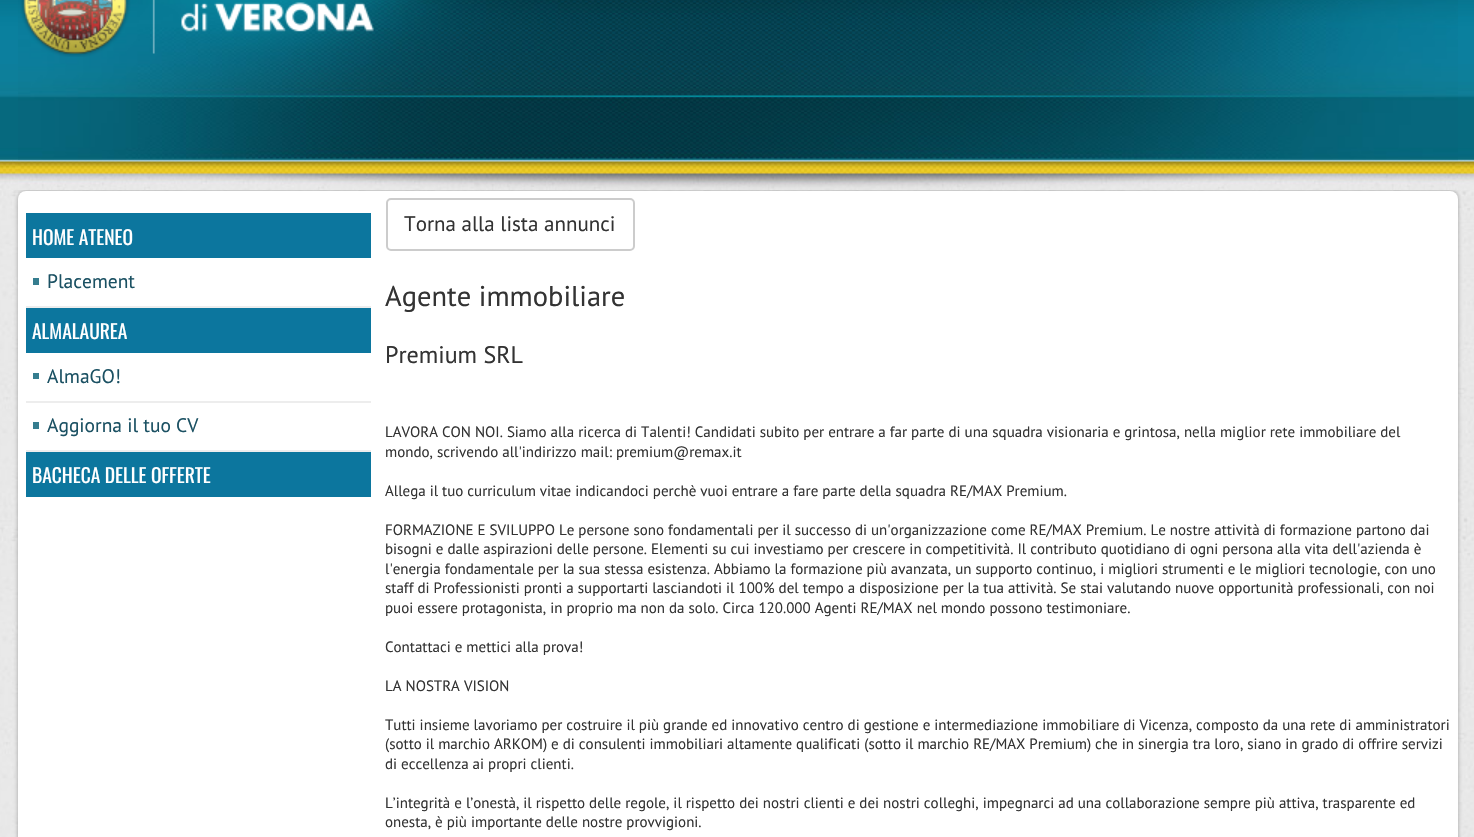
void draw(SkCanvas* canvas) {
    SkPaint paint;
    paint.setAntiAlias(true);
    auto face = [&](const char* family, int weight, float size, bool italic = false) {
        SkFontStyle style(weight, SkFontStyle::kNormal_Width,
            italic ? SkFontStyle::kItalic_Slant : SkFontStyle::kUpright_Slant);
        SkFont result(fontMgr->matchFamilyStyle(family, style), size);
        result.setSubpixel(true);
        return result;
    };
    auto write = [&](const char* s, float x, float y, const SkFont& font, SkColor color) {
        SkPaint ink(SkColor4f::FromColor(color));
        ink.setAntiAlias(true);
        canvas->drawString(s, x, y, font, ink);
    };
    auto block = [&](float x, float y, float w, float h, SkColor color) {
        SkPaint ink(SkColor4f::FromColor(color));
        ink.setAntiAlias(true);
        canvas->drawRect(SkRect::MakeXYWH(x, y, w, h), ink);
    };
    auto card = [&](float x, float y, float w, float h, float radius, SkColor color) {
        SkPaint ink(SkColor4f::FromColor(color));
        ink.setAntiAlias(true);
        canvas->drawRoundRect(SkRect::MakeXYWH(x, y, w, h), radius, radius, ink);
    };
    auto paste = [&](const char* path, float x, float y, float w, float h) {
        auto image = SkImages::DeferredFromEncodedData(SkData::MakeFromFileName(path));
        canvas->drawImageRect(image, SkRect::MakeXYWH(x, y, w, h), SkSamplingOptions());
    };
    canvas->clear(SK_ColorWHITE);
    paste("pic1.png", 0, 190, 1474, 647);
    paste("pic2.png", 0, 0, 1474, 190);
    paint.setColor(SkColorSetARGB(77, 0, 0, 0));
    paint.setMaskFilter(SkMaskFilter::MakeBlur(kNormal_SkBlurStyle, 2));
    canvas->drawRoundRect(SkRect::MakeXYWH(18, 191, 1440, 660), 8, 8, paint);
    paint.setMaskFilter(nullptr);
    paste("pic3.png", 18, 0, 1440, 190);
    paste("pic4.png", 20, 0, 354, 57);
    card(18, 191, 1440, 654, 8, SK_ColorWHITE);
    block(26, 213, 345, 45, SkColorSetRGB(12, 118, 158));
    auto kFont1 = face("Oswald", 400, 19.5f);
    write("HOME ATENEO", 32, 245, kFont1, SK_ColorWHITE);
    block(33, 278, 6, 7, SkColorSetRGB(53, 125, 143));
    block(26, 306, 345, 2, SkColorSetRGB(237, 237, 237));
    auto kFont2 = face("PT Sans", 400, 19.5f);
    write("Placement", 47, 288, kFont2, SkColorSetRGB(27, 81, 99));
    block(26, 308, 345, 45, SkColorSetRGB(12, 118, 158));
    write("ALMALAUREA", 32, 339, kFont1, SK_ColorWHITE);
    block(33, 373, 6, 6, SkColorSetRGB(53, 125, 143));
    block(26, 401, 345, 2, SkColorSetRGB(237, 237, 237));
    write("AlmaGO!", 47, 383, kFont2, SkColorSetRGB(27, 81, 99));
    block(33, 422, 6, 7, SkColorSetRGB(53, 125, 143));
    block(26, 450, 345, 2, SkColorSetRGB(237, 237, 237));
    write("Aggiorna il tuo CV", 47, 432, kFont2, SkColorSetRGB(27, 81, 99));
    block(26, 452, 345, 45, SkColorSetRGB(12, 118, 158));
    write("BACHECA DELLE OFFERTE", 32, 483, kFont1, SK_ColorWHITE);
    paint.setStyle(SkPaint::kStroke_Style);
    paint.setStrokeWidth(2);
    paint.setColor(SkColorSetRGB(204, 204, 204));
    canvas->drawRoundRect(SkRect::MakeXYWH(387, 199, 247, 51), 4, 4, paint);
    auto kFont3 = face("PT Sans", 400, 21);
    write("Torna alla lista annunci", 404, 231, kFont3, SkColorSetRGB(51, 51, 51));
    auto kFont4 = face("PT Sans", 400, 28.5f);
    write("Agente immobiliare", 385, 306, kFont4, SkColorSetRGB(51, 51, 51));
    auto kFont5 = face("PT Sans", 400, 24);
    write("Premium SRL", 385, 363, kFont5, SkColorSetRGB(51, 51, 51));
    auto kFont6 = face("PT Sans", 400, 15);
    write("LAVORA CON NOI. Siamo alla ricerca di Talenti! Candidati subito per entrare a far parte di una squadra visionaria e grintosa, nella miglior rete immobiliare del", 385, 437, kFont6, SkColorSetRGB(51, 51, 51));
    write("mondo, scrivendo all'indirizzo mail: premium@remax.it", 385, 457, kFont6, SkColorSetRGB(51, 51, 51));
    write("Allega il tuo curriculum vitae indicandoci perchè vuoi entrare a fare parte della squadra RE/MAX Premium.", 385, 496, kFont6, SkColorSetRGB(51, 51, 51));
    write("FORMAZIONE E SVILUPPO Le persone sono fondamentali per il successo di un'organizzazione come RE/MAX Premium. Le nostre attività di formazione partono dai", 385, 535, kFont6, SkColorSetRGB(51, 51, 51));
    write("bisogni e dalle aspirazioni delle persone. Elementi su cui investiamo per crescere in competitività. Il contributo quotidiano di ogni persona alla vita dell'azienda è", 385, 554, kFont6, SkColorSetRGB(51, 51, 51));
    write("l'energia fondamentale per la sua stessa esistenza. Abbiamo la formazione più avanzata, un supporto continuo, i migliori strumenti e le migliori tecnologie, con uno", 385, 574, kFont6, SkColorSetRGB(51, 51, 51));
    write("staff di Professionisti pronti a supportarti lasciandoti il 100% del tempo a disposizione per la tua attività. Se stai valutando nuove opportunità professionali, con noi", 385, 593, kFont6, SkColorSetRGB(51, 51, 51));
    write("puoi essere protagonista, in proprio ma non da solo. Circa 120.000 Agenti RE/MAX nel mondo possono testimoniare.", 385, 613, kFont6, SkColorSetRGB(51, 51, 51));
    write("Contattaci e mettici alla prova!", 385, 652, kFont6, SkColorSetRGB(51, 51, 51));
    write("LA NOSTRA VISION", 385, 691, kFont6, SkColorSetRGB(51, 51, 51));
    write("Tutti insieme lavoriamo per costruire il più grande ed innovativo centro di gestione e intermediazione immobiliare di Vicenza, composto da una rete di amministratori", 385, 730, kFont6, SkColorSetRGB(51, 51, 51));
    write("(sotto il marchio ARKOM) e di consulenti immobiliari altamente qualificati (sotto il marchio RE/MAX Premium) che in sinergia tra loro, siano in grado di offrire servizi", 385, 749, kFont6, SkColorSetRGB(51, 51, 51));
    write("di eccellenza ai propri clienti.", 385, 769, kFont6, SkColorSetRGB(51, 51, 51));
    write("L’integrità e l’onestà, il rispetto delle regole, il rispetto dei nostri clienti e dei nostri colleghi, impegnarci ad una collaborazione sempre più attiva, trasparente ed", 385, 808, kFont6, SkColorSetRGB(51, 51, 51));
    write("onesta, è più importante delle nostre provvigioni.", 385, 827, kFont6, SkColorSetRGB(51, 51, 51));
}
